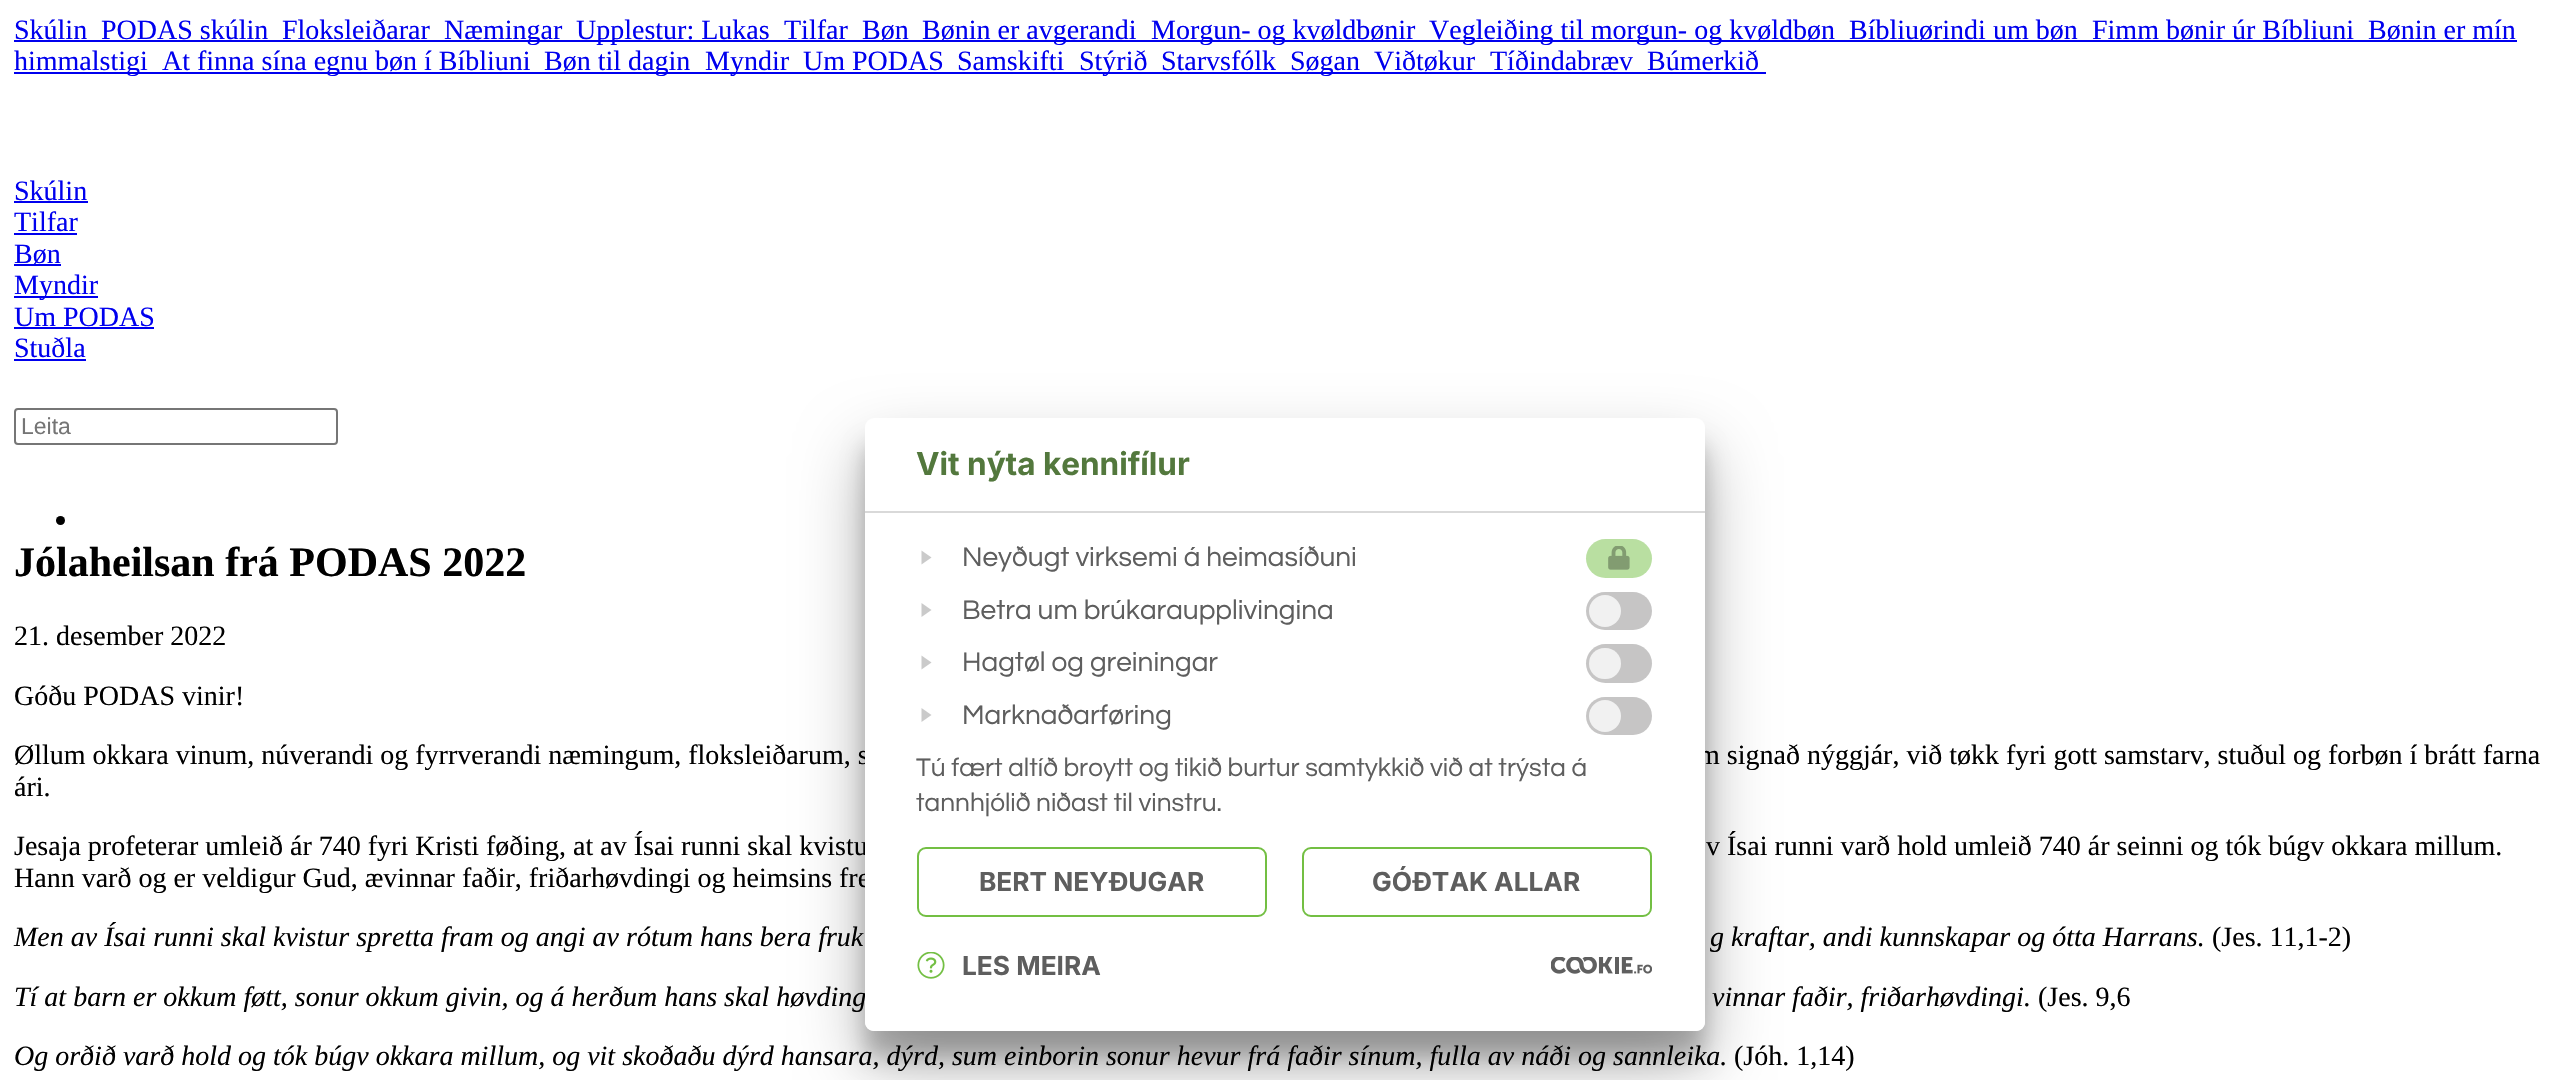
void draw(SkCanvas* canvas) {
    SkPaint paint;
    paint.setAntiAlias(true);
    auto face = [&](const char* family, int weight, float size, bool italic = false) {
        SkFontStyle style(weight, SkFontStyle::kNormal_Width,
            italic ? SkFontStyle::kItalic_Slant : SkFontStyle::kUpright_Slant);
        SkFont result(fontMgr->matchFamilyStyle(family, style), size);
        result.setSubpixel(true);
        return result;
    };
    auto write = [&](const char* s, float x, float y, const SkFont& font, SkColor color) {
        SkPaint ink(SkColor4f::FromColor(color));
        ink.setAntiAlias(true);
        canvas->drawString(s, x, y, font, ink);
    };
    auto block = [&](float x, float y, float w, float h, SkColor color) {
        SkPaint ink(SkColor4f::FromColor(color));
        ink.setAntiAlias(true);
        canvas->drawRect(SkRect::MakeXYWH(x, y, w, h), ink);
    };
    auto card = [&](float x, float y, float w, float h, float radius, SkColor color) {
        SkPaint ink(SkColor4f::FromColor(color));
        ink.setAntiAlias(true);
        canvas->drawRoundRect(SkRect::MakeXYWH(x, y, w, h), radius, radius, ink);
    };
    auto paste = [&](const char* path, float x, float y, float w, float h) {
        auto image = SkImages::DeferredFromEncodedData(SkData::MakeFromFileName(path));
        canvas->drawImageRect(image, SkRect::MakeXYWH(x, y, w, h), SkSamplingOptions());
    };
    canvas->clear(SK_ColorWHITE);
    auto kFont1 = face("Liberation Serif", 400, 28);
    write("Skúlin", 14, 39, kFont1, SkColorSetRGB(0, 0, 238));
    block(14, 40, 2503, 2, SkColorSetRGB(0, 0, 238));
    write("PODAS skúlin", 101, 39, kFont1, SkColorSetRGB(0, 0, 238));
    write("Floksleiðarar", 282, 39, kFont1, SkColorSetRGB(0, 0, 238));
    write("Næmingar", 444, 39, kFont1, SkColorSetRGB(0, 0, 238));
    write("Upplestur: Lukas", 576, 39, kFont1, SkColorSetRGB(0, 0, 238));
    write("Tilfar", 784, 39, kFont1, SkColorSetRGB(0, 0, 238));
    write("Bøn", 862, 39, kFont1, SkColorSetRGB(0, 0, 238));
    write("Bønin er avgerandi", 922, 39, kFont1, SkColorSetRGB(0, 0, 238));
    write("Morgun- og kvøldbønir", 1151, 39, kFont1, SkColorSetRGB(0, 0, 238));
    write("Vegleiðing til morgun- og kvøldbøn", 1429, 39, kFont1, SkColorSetRGB(0, 0, 238));
    write("Bíbliuørindi um bøn", 1849, 39, kFont1, SkColorSetRGB(0, 0, 238));
    write("Fimm bønir úr Bíbliuni", 2092, 39, kFont1, SkColorSetRGB(0, 0, 238));
    write("Bønin er mín", 2368, 39, kFont1, SkColorSetRGB(0, 0, 238));
    block(14, 72, 1752, 2, SkColorSetRGB(0, 0, 238));
    write("himmalstigi", 14, 70, kFont1, SkColorSetRGB(0, 0, 238));
    write("At finna sína egnu bøn í Bíbliuni", 162, 70, kFont1, SkColorSetRGB(0, 0, 238));
    write("Bøn til dagin", 544, 70, kFont1, SkColorSetRGB(0, 0, 238));
    write("Myndir", 705, 70, kFont1, SkColorSetRGB(0, 0, 238));
    write("Um PODAS", 803, 70, kFont1, SkColorSetRGB(0, 0, 238));
    write("Samskifti", 957, 70, kFont1, SkColorSetRGB(0, 0, 238));
    write("Stýrið", 1079, 70, kFont1, SkColorSetRGB(0, 0, 238));
    write("Starvsfólk", 1161, 70, kFont1, SkColorSetRGB(0, 0, 238));
    write("Søgan", 1290, 70, kFont1, SkColorSetRGB(0, 0, 238));
    write("Viðtøkur", 1374, 70, kFont1, SkColorSetRGB(0, 0, 238));
    write("Tíðindabræv", 1490, 70, kFont1, SkColorSetRGB(0, 0, 238));
    write("Búmerkið", 1647, 70, kFont1, SkColorSetRGB(0, 0, 238));
    write("Skúlin", 14, 200, kFont1, SkColorSetRGB(0, 0, 238));
    block(14, 201, 74, 2, SkColorSetRGB(0, 0, 238));
    write("Tilfar", 14, 231, kFont1, SkColorSetRGB(0, 0, 238));
    block(14, 233, 63, 2, SkColorSetRGB(0, 0, 238));
    block(14, 264, 47, 2, SkColorSetRGB(0, 0, 238));
    write("Bøn", 14, 263, kFont1, SkColorSetRGB(0, 0, 238));
    block(14, 296, 84, 2, SkColorSetRGB(0, 0, 238));
    write("Myndir", 14, 294, kFont1, SkColorSetRGB(0, 0, 238));
    write("Um PODAS", 14, 326, kFont1, SkColorSetRGB(0, 0, 238));
    block(14, 327, 140, 2, SkColorSetRGB(0, 0, 238));
    write("Stuðla", 14, 357, kFont1, SkColorSetRGB(0, 0, 238));
    block(14, 359, 72, 2, SkColorSetRGB(0, 0, 238));
    paint.setStyle(SkPaint::kStroke_Style);
    paint.setStrokeWidth(2);
    paint.setColor(SkColorSetRGB(118, 118, 118));
    canvas->drawRoundRect(SkRect::MakeXYWH(15, 409, 322, 35), 3, 3, paint);
    auto kFont2 = face("Liberation Sans", 400, 23);
    write("Leita", 21, 434, kFont2, SkColorSetRGB(117, 117, 117));
    paint.setStyle(SkPaint::kFill_Style);
    paint.setColor(SK_ColorBLACK);
    canvas->drawCircle(60.5f, 520.5f, 4.5f, paint);
    auto kFont3 = face("Liberation Serif", 700, 42);
    write("Jólaheilsan frá PODAS 2022", 14, 576, kFont3, SK_ColorBLACK);
    write("21. desember 2022", 14, 645, kFont1, SK_ColorBLACK);
    write("Góðu PODAS vinir!", 14, 705, kFont1, SK_ColorBLACK);
    write("Øllum okkara vinum, núverandi og fyrrverandi næmingum, floksleiðarum, s", 14, 764, kFont1, SK_ColorBLACK);
    write("m signað nýggjár, við tøkk fyri gott samstarv, stuðul og forbøn í brátt farna", 1698, 764, kFont1, SK_ColorBLACK);
    write("ári.", 14, 796, kFont1, SK_ColorBLACK);
    write("Jesaja profeterar umleið ár 740 fyri Kristi føðing, at av Ísai runni skal kvistu", 14, 855, kFont1, SK_ColorBLACK);
    write("v Ísai runni varð hold umleið 740 ár seinni og tók búgv okkara millum.", 1706, 855, kFont1, SK_ColorBLACK);
    write("Hann varð og er veldigur Gud, ævinnar faðir, friðarhøvdingi og heimsins fre", 14, 887, kFont1, SK_ColorBLACK);
    auto kFont4 = face("Liberation Serif", 400, 28, true);
    write("Men av Ísai runni skal kvistur spretta fram og angi av rótum hans bera fruk", 14, 946, kFont4, SK_ColorBLACK);
    write("g kraftar, andi kunnskapar og ótta Harrans.", 1710, 946, kFont4, SK_ColorBLACK);
    write("(Jes. 11,1-2)", 2212, 946, kFont1, SK_ColorBLACK);
    write("Tí at barn er okkum føtt, sonur okkum givin, og á herðum hans skal høvding", 14, 1006, kFont4, SK_ColorBLACK);
    write("vinnar faðir, friðarhøvdingi.", 1712, 1006, kFont4, SK_ColorBLACK);
    write("(Jes. 9,6", 2038, 1006, kFont1, SK_ColorBLACK);
    write("Og orðið varð hold og tók búgv okkara millum, og vit skoðaðu dýrd hansara, dýrd, sum einborin sonur hevur frá faðir sínum, fulla av náði og sannleika.", 14, 1065, kFont4, SK_ColorBLACK);
    write("(Jóh. 1,14)", 1734, 1065, kFont1, SK_ColorBLACK);
    paint.setColor(SkColorSetARGB(56, 0, 0, 0));
    paint.setMaskFilter(SkMaskFilter::MakeBlur(kNormal_SkBlurStyle, 10.5f));
    canvas->drawRoundRect(SkRect::MakeXYWH(865, 445, 840, 612), 9, 9, paint);
    paint.setMaskFilter(nullptr);
    paint.setColor(SkColorSetARGB(77, 0, 0, 0));
    paint.setMaskFilter(SkMaskFilter::MakeBlur(kNormal_SkBlurStyle, 33));
    canvas->drawRoundRect(SkRect::MakeXYWH(865, 452, 840, 612), 9, 9, paint);
    paint.setMaskFilter(nullptr);
    card(865, 418, 840, 613, 9, SK_ColorWHITE);
    block(865, 511, 840, 2, SkColorSetRGB(217, 217, 217));
    auto kFont5 = face("Inter", 700, 31.5f);
    write("Vit nýta kennifílur", 916, 475, kFont5, SkColorSetRGB(83, 120, 61));
    paint.setColor(SkColorSetRGB(202, 202, 202));
    canvas->drawPath(SkPathBuilder().moveTo(921.5f, 550.5f).lineTo(931.5f, 557.5f).lineTo(921.5f, 564.5f).close().detach(), paint);
    auto kFont6 = face("Questrial", 400, 28);
    write("Neyðugt virksemi á heimasíðuni", 962, 566, kFont6, SkColorSetRGB(94, 94, 94));
    card(1586, 539, 66, 39, 19.5f, SkColorSetRGB(185, 223, 161));
    paste("pic1.png", 1608, 546, 22, 24);
    canvas->drawPath(SkPathBuilder().moveTo(921.5f, 603).lineTo(931.5f, 610).lineTo(921.5f, 617).close().detach(), paint);
    write("Betra um brúkaraupplivingina", 962, 619, kFont6, SkColorSetRGB(94, 94, 94));
    card(1586, 592, 66, 38, 19, SkColorSetRGB(198, 197, 197));
    paint.setColor(SkColorSetRGB(241, 241, 241));
    canvas->drawCircle(1605, 611, 16, paint);
    paint.setColor(SkColorSetRGB(202, 202, 202));
    canvas->drawPath(SkPathBuilder().moveTo(921.5f, 655.5f).lineTo(931.5f, 662.5f).lineTo(921.5f, 669.5f).close().detach(), paint);
    write("Hagtøl og greiningar", 962, 671, kFont6, SkColorSetRGB(94, 94, 94));
    card(1586, 644, 66, 39, 19.5f, SkColorSetRGB(198, 197, 197));
    card(1589, 648, 32, 31, 15.5f, SkColorSetRGB(241, 241, 241));
    canvas->drawPath(SkPathBuilder().moveTo(921.5f, 708).lineTo(931.5f, 715).lineTo(921.5f, 722).close().detach(), paint);
    write("Marknaðarføring", 962, 724, kFont6, SkColorSetRGB(94, 94, 94));
    card(1586, 697, 66, 38, 19, SkColorSetRGB(198, 197, 197));
    paint.setColor(SkColorSetRGB(241, 241, 241));
    canvas->drawCircle(1605, 716, 16, paint);
    auto kFont7 = face("Questrial", 400, 26.25f);
    write("Tú fært altíð broytt og tikið burtur samtykkið við at trýsta á", 916, 776, kFont7, SkColorSetRGB(94, 94, 94));
    write("tannhjólið niðast til vinstru.", 916, 811, kFont7, SkColorSetRGB(94, 94, 94));
    paint.setColor(SK_ColorWHITE);
    canvas->drawPath(SkPathBuilder().moveTo(865, 833).lineTo(1705, 833).lineTo(1705, 1022).cubicTo(1705, 1027, 1701, 1031, 1696, 1031).lineTo(874, 1031).cubicTo(869, 1031, 865, 1027, 865, 1022).close().detach(), paint);
    paint.setStyle(SkPaint::kStroke_Style);
    paint.setColor(SkColorSetRGB(115, 191, 67));
    canvas->drawRoundRect(SkRect::MakeXYWH(918, 848, 348, 68), 8, 8, paint);
    auto kFont8 = face("Inter", 700, 26.25f);
    write("BERT NEYÐUGAR", 979, 891, kFont8, SkColorSetRGB(94, 94, 94));
    canvas->drawRoundRect(SkRect::MakeXYWH(1303, 848, 348, 68), 8, 8, paint);
    write("GÓÐTAK ALLAR", 1372, 891, kFont8, SkColorSetRGB(94, 94, 94));
    paste("pic2.png", 917, 952, 28, 27);
    write("LES MEIRA", 962, 975, kFont8, SkColorSetRGB(94, 94, 94));
    paste("pic3.png", 1551, 957, 101, 17);
}
